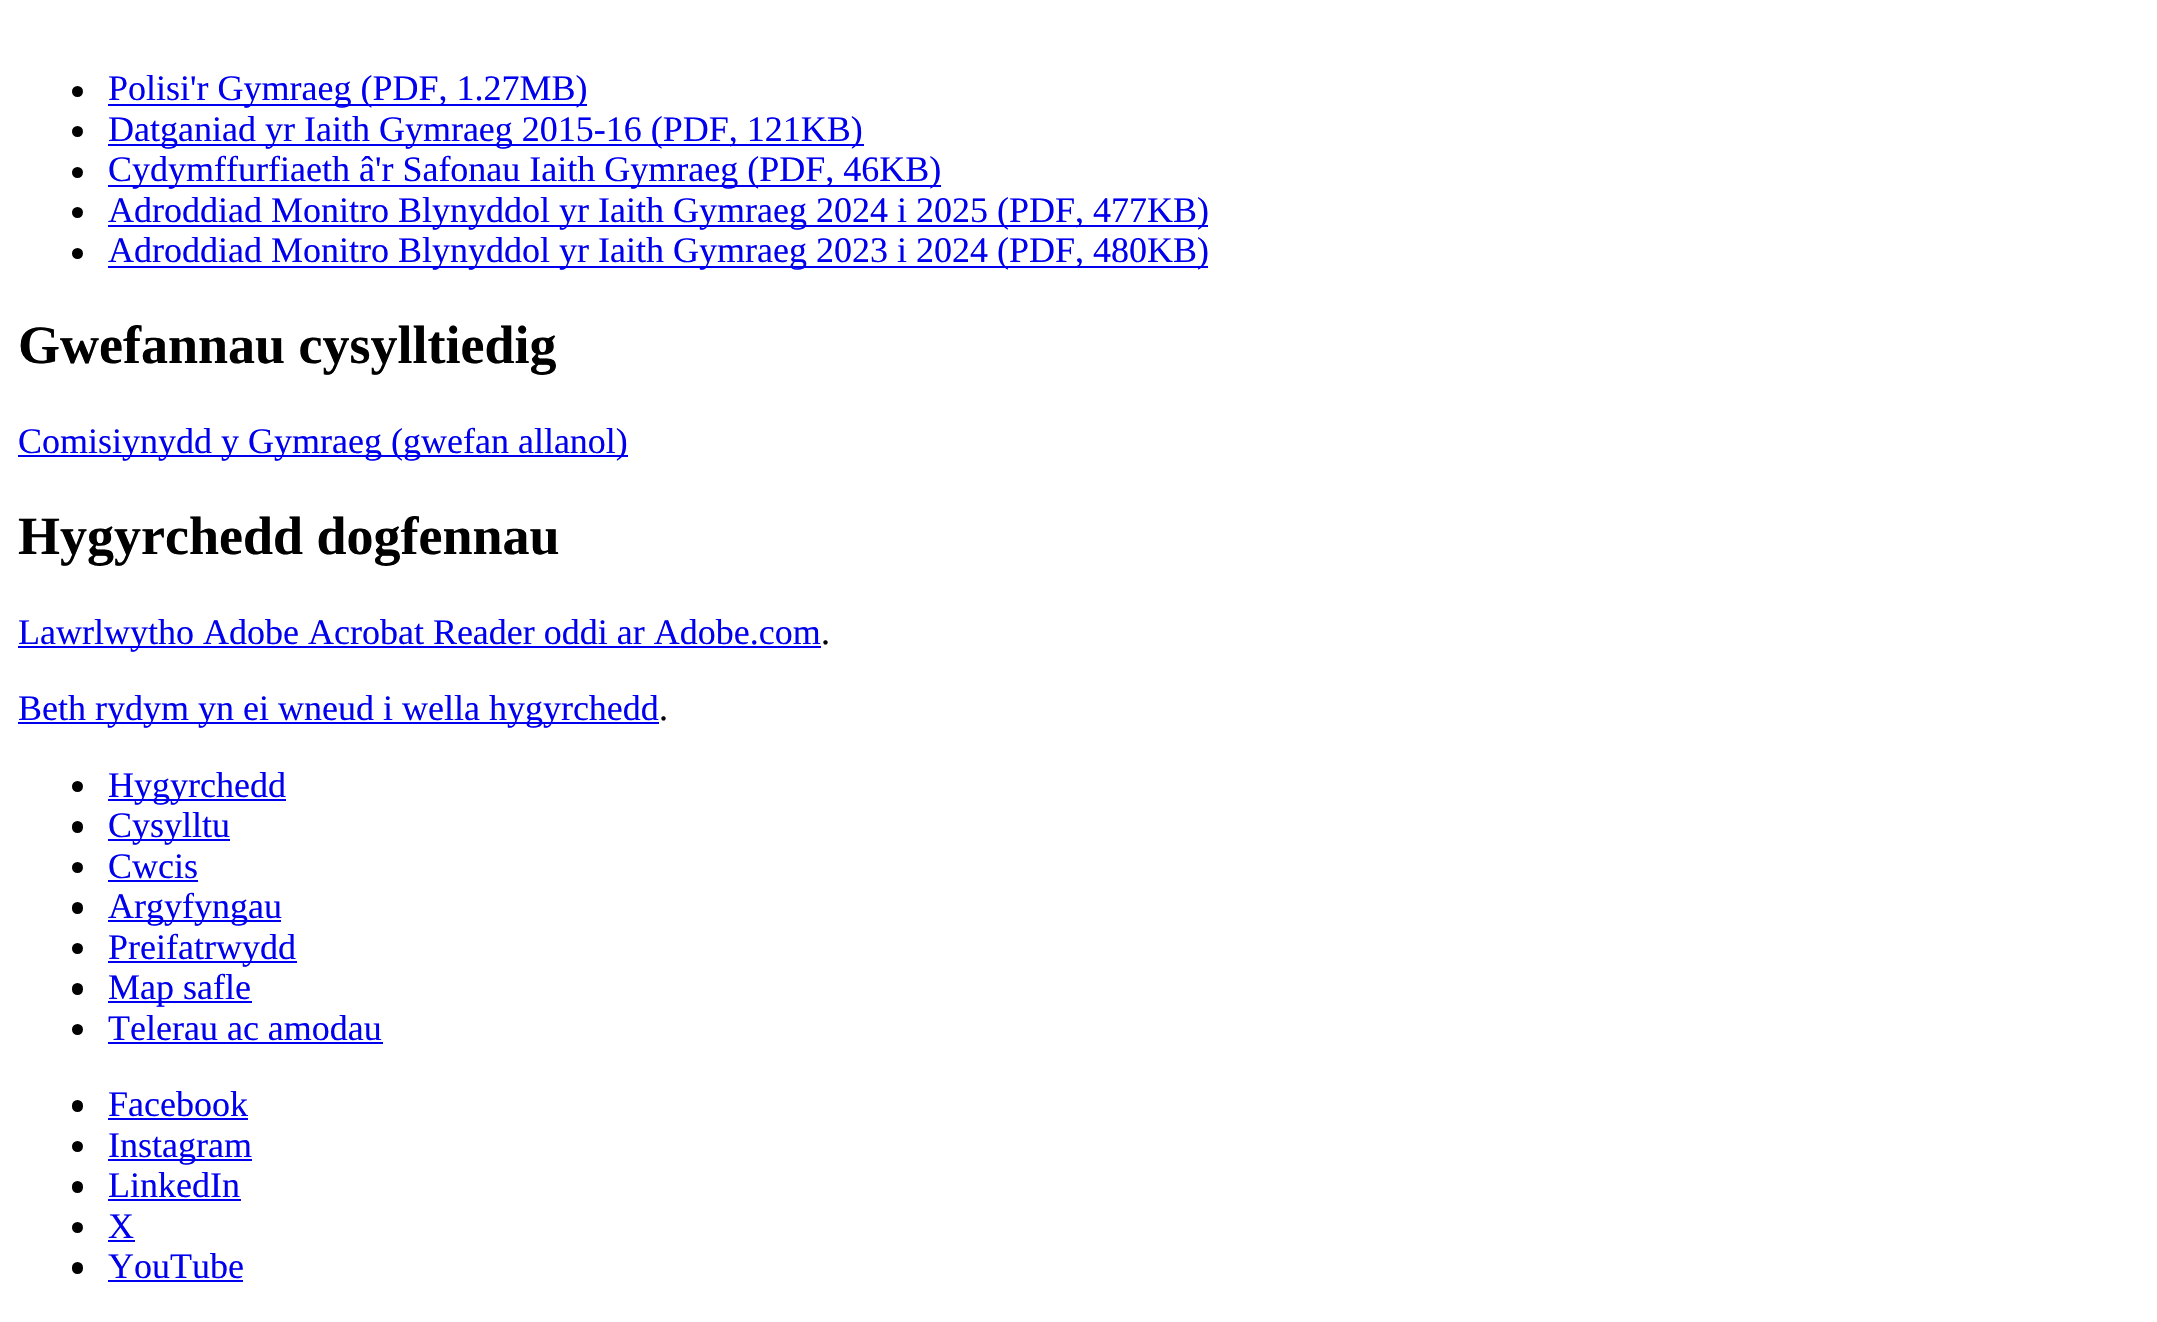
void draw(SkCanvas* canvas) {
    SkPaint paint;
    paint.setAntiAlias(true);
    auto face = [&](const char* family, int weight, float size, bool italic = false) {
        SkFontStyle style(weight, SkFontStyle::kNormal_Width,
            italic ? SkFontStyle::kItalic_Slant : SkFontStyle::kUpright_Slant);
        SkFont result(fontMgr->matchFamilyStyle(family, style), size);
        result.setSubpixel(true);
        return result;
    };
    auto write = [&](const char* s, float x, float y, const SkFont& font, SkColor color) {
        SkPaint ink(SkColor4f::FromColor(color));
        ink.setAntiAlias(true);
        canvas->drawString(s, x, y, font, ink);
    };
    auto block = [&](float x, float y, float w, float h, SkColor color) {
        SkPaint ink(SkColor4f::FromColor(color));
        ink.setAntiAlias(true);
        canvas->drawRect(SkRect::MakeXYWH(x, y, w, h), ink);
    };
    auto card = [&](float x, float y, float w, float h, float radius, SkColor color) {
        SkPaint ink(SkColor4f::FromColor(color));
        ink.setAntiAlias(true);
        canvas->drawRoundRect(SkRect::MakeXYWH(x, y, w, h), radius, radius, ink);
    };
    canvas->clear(SK_ColorWHITE);
    paint.setColor(SK_ColorBLACK);
    canvas->drawCircle(77.5f, 91.5f, 5.5f, paint);
    block(108, 104, 479, 2, SkColorSetRGB(0, 0, 238));
    auto kFont1 = face("Liberation Serif", 400, 36);
    write("Polisi'r Gymraeg (PDF, 1.27MB)", 108, 100, kFont1, SkColorSetRGB(0, 0, 238));
    canvas->drawCircle(77.5f, 131.5f, 5.5f, paint);
    block(108, 144, 756, 2, SkColorSetRGB(0, 0, 238));
    write("Datganiad yr Iaith Gymraeg 2015-16 (PDF, 121KB)", 108, 141, kFont1, SkColorSetRGB(0, 0, 238));
    canvas->drawCircle(77.5f, 172.5f, 5.5f, paint);
    block(108, 185, 833, 2, SkColorSetRGB(0, 0, 238));
    write("Cydymffurfiaeth â'r Safonau Iaith Gymraeg (PDF, 46KB)", 108, 181, kFont1, SkColorSetRGB(0, 0, 238));
    canvas->drawCircle(77.5f, 212.5f, 5.5f, paint);
    block(108, 225, 1100, 2, SkColorSetRGB(0, 0, 238));
    write("Adroddiad Monitro Blynyddol yr Iaith Gymraeg 2024 i 2025 (PDF, 477KB)", 108, 222, kFont1, SkColorSetRGB(0, 0, 238));
    canvas->drawCircle(77.5f, 253.5f, 5.5f, paint);
    block(108, 266, 1100, 2, SkColorSetRGB(0, 0, 238));
    write("Adroddiad Monitro Blynyddol yr Iaith Gymraeg 2023 i 2024 (PDF, 480KB)", 108, 262, kFont1, SkColorSetRGB(0, 0, 238));
    auto kFont2 = face("Liberation Serif", 700, 54);
    write("Gwefannau cysylltiedig", 18, 363, kFont2, SK_ColorBLACK);
    block(18, 455, 610, 2, SkColorSetRGB(0, 0, 238));
    write("Comisiynydd y Gymraeg (gwefan allanol)", 18, 453, kFont1, SkColorSetRGB(0, 0, 238));
    write("Hygyrchedd dogfennau", 18, 554, kFont2, SK_ColorBLACK);
    block(18, 646, 803, 2, SkColorSetRGB(0, 0, 238));
    write("Lawrlwytho Adobe Acrobat Reader oddi ar Adobe.com", 18, 644, kFont1, SkColorSetRGB(0, 0, 238));
    write(".", 821, 644, kFont1, SK_ColorBLACK);
    block(18, 722, 641, 2, SkColorSetRGB(0, 0, 238));
    write("Beth rydym yn ei wneud i wella hygyrchedd", 18, 720, kFont1, SkColorSetRGB(0, 0, 238));
    write(".", 659, 720, kFont1, SK_ColorBLACK);
    canvas->drawCircle(77.5f, 786.5f, 5.5f, paint);
    block(108, 799, 178, 2, SkColorSetRGB(0, 0, 238));
    write("Hygyrchedd", 108, 797, kFont1, SkColorSetRGB(0, 0, 238));
    card(72, 821, 11, 12, 5.5f, SK_ColorBLACK);
    block(108, 839, 122, 2, SkColorSetRGB(0, 0, 238));
    write("Cysylltu", 108, 837, kFont1, SkColorSetRGB(0, 0, 238));
    canvas->drawCircle(77.5f, 867.5f, 5.5f, paint);
    write("Cwcis", 108, 878, kFont1, SkColorSetRGB(0, 0, 238));
    block(108, 880, 90, 2, SkColorSetRGB(0, 0, 238));
    card(72, 902, 11, 12, 5.5f, SK_ColorBLACK);
    block(108, 920, 173, 2, SkColorSetRGB(0, 0, 238));
    write("Argyfyngau", 108, 918, kFont1, SkColorSetRGB(0, 0, 238));
    canvas->drawCircle(77.5f, 948.5f, 5.5f, paint);
    block(108, 961, 189, 2, SkColorSetRGB(0, 0, 238));
    write("Preifatrwydd", 108, 959, kFont1, SkColorSetRGB(0, 0, 238));
    card(72, 983, 11, 12, 5.5f, SK_ColorBLACK);
    block(108, 1001, 144, 2, SkColorSetRGB(0, 0, 238));
    write("Map safle", 108, 999, kFont1, SkColorSetRGB(0, 0, 238));
    canvas->drawCircle(77.5f, 1029.5f, 5.5f, paint);
    write("Telerau ac amodau", 108, 1040, kFont1, SkColorSetRGB(0, 0, 238));
    block(108, 1042, 275, 2, SkColorSetRGB(0, 0, 238));
    card(72, 1100, 11, 12, 5.5f, SK_ColorBLACK);
    write("Facebook", 108, 1116, kFont1, SkColorSetRGB(0, 0, 238));
    block(108, 1118, 140, 2, SkColorSetRGB(0, 0, 238));
    canvas->drawCircle(77.5f, 1146.5f, 5.5f, paint);
    block(108, 1159, 144, 2, SkColorSetRGB(0, 0, 238));
    write("Instagram", 108, 1157, kFont1, SkColorSetRGB(0, 0, 238));
    card(72, 1181, 11, 12, 5.5f, SK_ColorBLACK);
    write("LinkedIn", 108, 1197, kFont1, SkColorSetRGB(0, 0, 238));
    block(108, 1199, 133, 2, SkColorSetRGB(0, 0, 238));
    canvas->drawCircle(77.5f, 1227.5f, 5.5f, paint);
    write("X", 108, 1238, kFont1, SkColorSetRGB(0, 0, 238));
    block(108, 1240, 27, 2, SkColorSetRGB(0, 0, 238));
    card(72, 1262, 11, 12, 5.5f, SK_ColorBLACK);
    write("YouTube", 108, 1278, kFont1, SkColorSetRGB(0, 0, 238));
    block(108, 1280, 135, 2, SkColorSetRGB(0, 0, 238));
}
